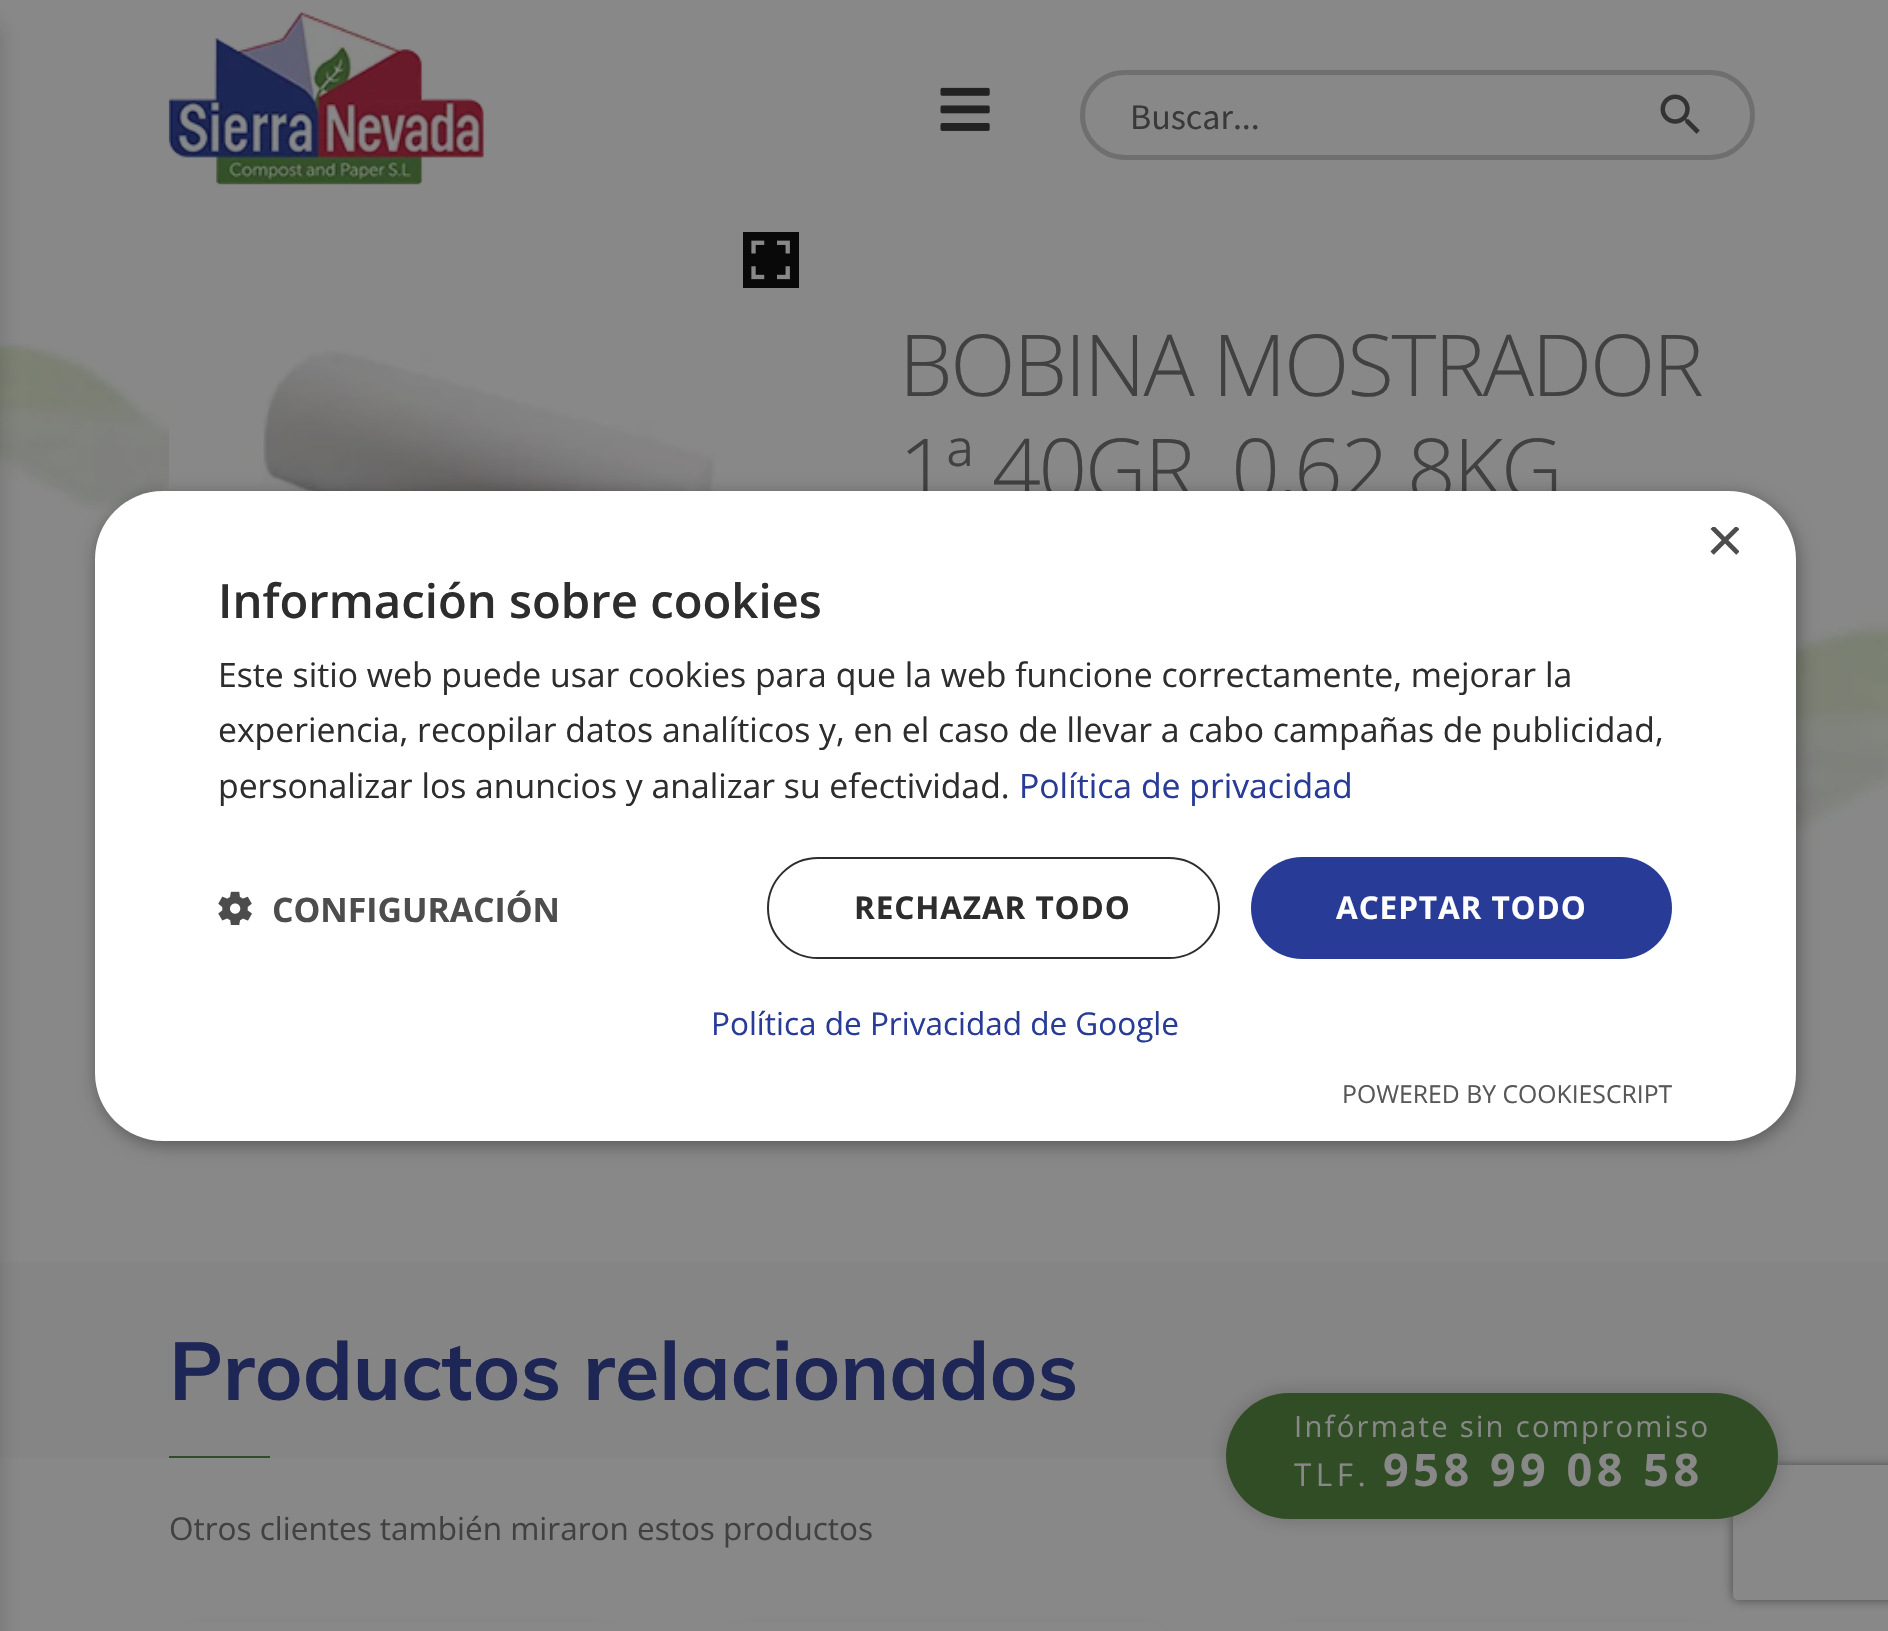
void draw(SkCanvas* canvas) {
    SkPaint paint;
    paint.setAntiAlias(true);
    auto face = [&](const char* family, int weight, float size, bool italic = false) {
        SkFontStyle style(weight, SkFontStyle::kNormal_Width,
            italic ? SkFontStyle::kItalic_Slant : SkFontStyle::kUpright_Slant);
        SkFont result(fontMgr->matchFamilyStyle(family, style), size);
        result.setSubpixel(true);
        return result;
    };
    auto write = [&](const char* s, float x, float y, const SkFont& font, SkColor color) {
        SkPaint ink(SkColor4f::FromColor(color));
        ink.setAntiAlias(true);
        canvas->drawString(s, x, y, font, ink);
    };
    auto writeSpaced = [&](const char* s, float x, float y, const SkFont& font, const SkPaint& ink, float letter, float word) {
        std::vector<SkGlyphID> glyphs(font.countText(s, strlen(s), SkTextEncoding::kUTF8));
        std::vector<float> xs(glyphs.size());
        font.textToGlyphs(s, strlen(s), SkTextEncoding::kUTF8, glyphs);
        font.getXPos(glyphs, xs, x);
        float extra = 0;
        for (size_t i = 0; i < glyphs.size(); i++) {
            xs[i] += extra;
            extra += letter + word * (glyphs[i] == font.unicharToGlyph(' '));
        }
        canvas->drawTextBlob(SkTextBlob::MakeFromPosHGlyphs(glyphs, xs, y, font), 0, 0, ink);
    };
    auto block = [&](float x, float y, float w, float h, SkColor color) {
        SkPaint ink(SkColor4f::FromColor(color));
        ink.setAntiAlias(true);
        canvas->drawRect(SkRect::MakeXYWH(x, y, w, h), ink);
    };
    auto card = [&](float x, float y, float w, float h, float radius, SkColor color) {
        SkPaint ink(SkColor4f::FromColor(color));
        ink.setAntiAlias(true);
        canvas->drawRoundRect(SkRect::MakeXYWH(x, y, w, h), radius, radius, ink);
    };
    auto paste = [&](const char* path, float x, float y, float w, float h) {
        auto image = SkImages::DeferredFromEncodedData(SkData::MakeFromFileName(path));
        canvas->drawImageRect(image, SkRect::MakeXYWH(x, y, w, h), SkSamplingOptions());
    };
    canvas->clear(SkColorSetRGB(136, 136, 136));
    paste("pic4.png", 0, 343, 1888, 502);
    {
        const SkColor colors[] = {SkColorSetRGB(133, 133, 133), SkColorSetRGB(136, 136, 136)};
        const float stops[] = {0, 1};
        const SkPoint ends[] = {{945, 1262}, {945, 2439}};
        paint.setShader(SkGradientShader::MakeLinear(ends, colors, stops, 2, SkTileMode::kClamp));
        paint.setAlpha(255);
    }
    canvas->drawRect(SkRect::MakeXYWH(0, 1262, 1888, 196), paint);
    paint.setShader(nullptr);
    paint.setColor(SkColorSetARGB(51, 21, 21, 21));
    paint.setMaskFilter(SkMaskFilter::MakeBlur(kNormal_SkBlurStyle, 11));
    canvas->drawRect(SkRect::MakeXYWH(-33, 23, 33, 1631), paint);
    paint.setMaskFilter(nullptr);
    paste("pic1.png", 940, 87, 50, 44);
    paste("pic2.png", 168, 11, 316, 174);
    paint.setStyle(SkPaint::kStroke_Style);
    paint.setStrokeWidth(5);
    paint.setColor(SkColorSetRGB(111, 111, 111));
    canvas->drawRoundRect(SkRect::MakeXYWH(1082.5f, 72.5f, 670, 85), 42.5f, 42.5f, paint);
    auto kFont1 = face("Source Sans Pro", 400, 36);
    write("Buscar...", 1130, 129, kFont1, SkColorSetRGB(57, 57, 57));
    paste("pic3.png", 1660, 94, 40, 40);
    block(743, 232, 56, 56, SkColorSetRGB(9, 9, 9));
    paste("pic5.png", 751, 240, 39, 40);
    block(169, 426, 77, 64, SkColorSetRGB(136, 136, 136));
    paste("pic6.png", 263, 350, 453, 141);
    auto kFont2 = face("Open Sans", 300, 85.5f);
    paint.setStyle(SkPaint::kFill_Style);
    paint.setColor(SkColorSetRGB(65, 65, 65));
    writeSpaced("BOBINA MOSTRADOR", 899, 396, kFont2, paint, -2.25f, 0);
    writeSpaced("1ª 40GR. 0,62 8KG", 899, 500, kFont2, paint, -2.25f, 0);
    auto kFont3 = face("Muli", 700, 81);
    write("Productos relacionados", 169, 1400, kFont3, SkColorSetRGB(29, 38, 84));
    block(169, 1456, 101, 2, SkColorSetRGB(48, 77, 37));
    auto kFont4 = face("Open Sans", 400, 31.5f);
    write("Otros clientes también miraron estos productos", 169, 1540, kFont4, SkColorSetRGB(65, 65, 65));
    paint.setColor(SkColorSetARGB(51, 9, 9, 9));
    paint.setMaskFilter(SkMaskFilter::MakeBlur(kNormal_SkBlurStyle, 9));
    canvas->drawRoundRect(SkRect::MakeXYWH(169, 1631, 457, 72), 45, 45, paint);
    paint.setMaskFilter(nullptr);
    card(169, 1622, 457, 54, 45, SkColorSetRGB(136, 136, 136));
    paint.setMaskFilter(SkMaskFilter::MakeBlur(kNormal_SkBlurStyle, 9));
    canvas->drawRoundRect(SkRect::MakeXYWH(718, 1631, 454, 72), 45, 45, paint);
    paint.setMaskFilter(nullptr);
    card(718, 1622, 454, 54, 45, SkColorSetRGB(136, 136, 136));
    paint.setMaskFilter(SkMaskFilter::MakeBlur(kNormal_SkBlurStyle, 9));
    canvas->drawRoundRect(SkRect::MakeXYWH(1265, 1631, 456, 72), 45, 45, paint);
    paint.setMaskFilter(nullptr);
    card(1265, 1622, 456, 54, 45, SkColorSetRGB(136, 136, 136));
    paint.setMaskFilter(SkMaskFilter::MakeBlur(kNormal_SkBlurStyle, 11));
    canvas->drawRoundRect(SkRect::MakeXYWH(1226, 1393, 552, 126), 63, 63, paint);
    paint.setMaskFilter(nullptr);
    canvas->save();
    canvas->clipPath(SkPathBuilder(SkPathFillType::kEvenOdd).moveTo(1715, 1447).lineTo(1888, 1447).lineTo(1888, 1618).lineTo(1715, 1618).close().moveTo(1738, 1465).lineTo(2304, 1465).cubicTo(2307, 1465, 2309, 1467, 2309, 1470).lineTo(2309, 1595).cubicTo(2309, 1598, 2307, 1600, 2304, 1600).lineTo(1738, 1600).cubicTo(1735, 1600, 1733, 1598, 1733, 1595).lineTo(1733, 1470).cubicTo(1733, 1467, 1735, 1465, 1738, 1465).close().detach(), true);
    paint.setColor(SkColorSetRGB(73, 73, 73));
    paint.setMaskFilter(SkMaskFilter::MakeBlur(kNormal_SkBlurStyle, 5.5f));
    canvas->drawRoundRect(SkRect::MakeXYWH(1733, 1465, 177, 135), 5, 5, paint);
    paint.setMaskFilter(nullptr);
    canvas->restore();
    card(1226, 1393, 552, 126, 63, SkColorSetRGB(48, 77, 37));
    auto kFont5 = face("Open Sans", 400, 29.25f);
    paint.setColor(SkColorSetRGB(136, 136, 136));
    writeSpaced("Infórmate sin compromiso", 1294, 1437, kFont5, paint, 2.25f, 0);
    writeSpaced("TLF.", 1294, 1486, kFont4, paint, 4.5f, 0);
    auto kFont6 = face("Open Sans", 700, 45);
    writeSpaced("958 99 08 58", 1383, 1486, kFont6, paint, 4.5f, 0);
    paint.setColor(SkColorSetARGB(89, 0, 0, 0));
    paint.setMaskFilter(SkMaskFilter::MakeBlur(kNormal_SkBlurStyle, 9));
    canvas->drawRoundRect(SkRect::MakeXYWH(97, 495, 1701, 650), 68, 68, paint);
    paint.setMaskFilter(nullptr);
    card(95, 491, 1701, 650, 68, SK_ColorWHITE);
    canvas->save();
    canvas->clipRect(SkRect::MakeXYWH(1706, 527, 33, 33));
    auto kFont7 = face("Liberation Sans", 400, 65);
    write("×", 1706, 562, kFont7, SkColorSetRGB(77, 77, 77));
    canvas->restore();
    auto kFont8 = face("Open Sans", 600, 47.25f);
    write("Información sobre cookies", 218, 618, kFont8, SkColorSetRGB(45, 45, 45));
    auto kFont9 = face("Open Sans", 400, 33.75f);
    write("Este sitio web puede usar cookies para que la web funcione correctamente, mejorar la", 218, 687, kFont9, SkColorSetRGB(45, 45, 45));
    write("experiencia, recopilar datos analíticos y, en el caso de llevar a cabo campañas de publicidad,", 218, 742, kFont9, SkColorSetRGB(45, 45, 45));
    write("personalizar los anuncios y analizar su efectividad.", 218, 798, kFont9, SkColorSetRGB(45, 45, 45));
    write("Política de privacidad", 1019, 798, kFont9, SkColorSetRGB(40, 59, 150));
    paste("pic7.png", 218, 891, 34, 34);
    auto kFont10 = face("Open Sans", 700, 33.75f);
    write("CONFIGURACIÓN", 272, 922, kFont10, SkColorSetRGB(77, 77, 77));
    paint.setStyle(SkPaint::kStroke_Style);
    paint.setStrokeWidth(2);
    paint.setColor(SkColorSetRGB(45, 45, 45));
    canvas->drawRoundRect(SkRect::MakeXYWH(768, 858, 451, 100), 50, 50, paint);
    auto kFont11 = face("Open Sans", 700, 31.5f);
    paint.setStyle(SkPaint::kFill_Style);
    writeSpaced("RECHAZAR TODO", 854, 919, kFont11, paint, 0.9f, 0);
    card(1251, 857, 421, 102, 51, SkColorSetRGB(40, 59, 150));
    paint.setColor(SK_ColorWHITE);
    writeSpaced("ACEPTAR TODO", 1336, 919, kFont11, paint, 0.9f, 0);
    write("Política de Privacidad de Google", 711, 1035, kFont4, SkColorSetRGB(40, 59, 150));
    auto kFont12 = face("Open Sans", 400, 24.75f);
    write("POWERED BY COOKIESCRIPT", 1342, 1103, kFont12, SkColorSetRGB(87, 87, 87));
}
